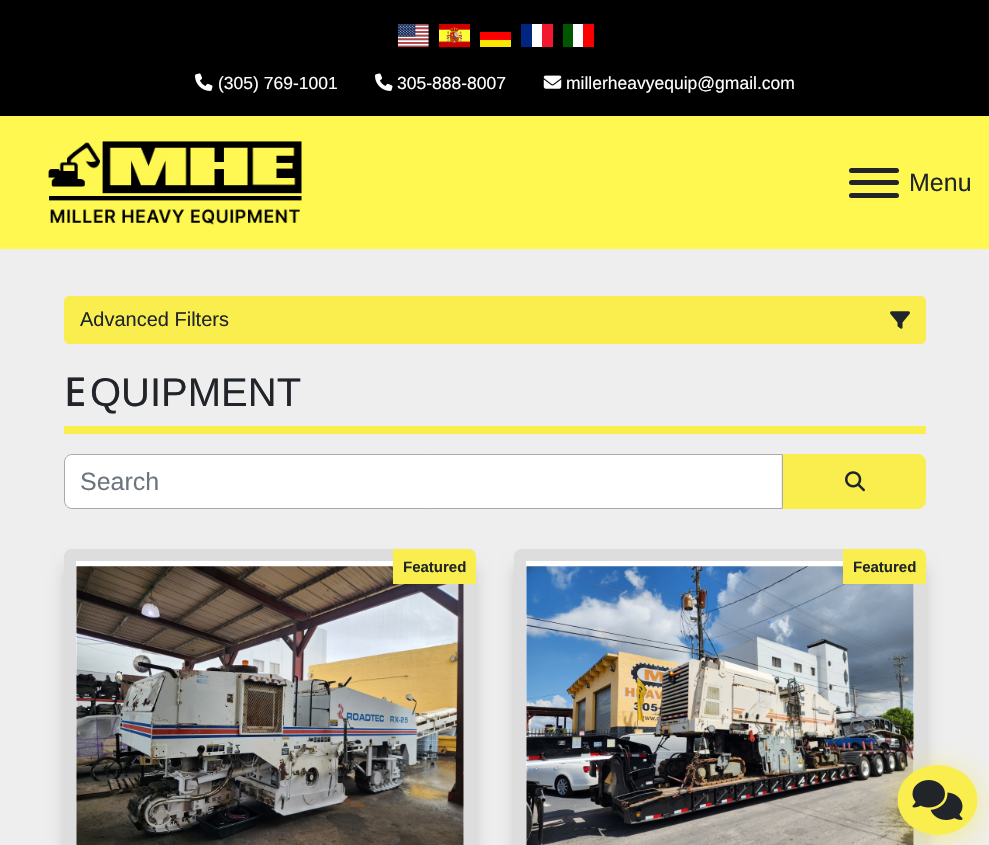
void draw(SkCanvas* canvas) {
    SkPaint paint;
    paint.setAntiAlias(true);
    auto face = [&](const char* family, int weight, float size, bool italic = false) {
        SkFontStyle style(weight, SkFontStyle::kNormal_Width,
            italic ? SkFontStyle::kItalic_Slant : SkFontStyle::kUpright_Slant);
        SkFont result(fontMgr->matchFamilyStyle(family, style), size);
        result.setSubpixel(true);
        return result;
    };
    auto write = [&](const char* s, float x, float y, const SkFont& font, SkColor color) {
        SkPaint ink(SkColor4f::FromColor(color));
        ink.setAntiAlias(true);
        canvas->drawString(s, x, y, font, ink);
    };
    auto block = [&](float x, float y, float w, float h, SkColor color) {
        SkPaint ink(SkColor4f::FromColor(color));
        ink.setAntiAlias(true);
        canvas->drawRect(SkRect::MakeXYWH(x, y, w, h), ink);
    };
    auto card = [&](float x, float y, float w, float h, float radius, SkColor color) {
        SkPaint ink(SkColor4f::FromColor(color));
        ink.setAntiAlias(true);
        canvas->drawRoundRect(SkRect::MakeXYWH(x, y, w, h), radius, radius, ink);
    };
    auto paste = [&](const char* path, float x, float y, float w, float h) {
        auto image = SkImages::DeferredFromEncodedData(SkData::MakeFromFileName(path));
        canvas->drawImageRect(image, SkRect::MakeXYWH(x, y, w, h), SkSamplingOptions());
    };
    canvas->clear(SkColorSetRGB(238, 238, 238));
    block(0, 0, 989, 116, SK_ColorBLACK);
    paste("pic1.png", 398, 24, 31, 24);
    paste("pic2.png", 439, 24, 31, 24);
    block(480, 32, 31, 8, SkColorSetRGB(255, 0, 0));
    block(480, 40, 31, 7, SkColorSetRGB(255, 230, 0));
    block(521, 24, 11, 23, SkColorSetRGB(0, 38, 127));
    block(532, 24, 10, 23, SK_ColorWHITE);
    block(542, 24, 11, 23, SkColorSetRGB(243, 24, 48));
    block(563, 24, 10, 23, SkColorSetRGB(0, 87, 0));
    block(573, 24, 10, 23, SK_ColorWHITE);
    block(583, 24, 11, 23, SkColorSetRGB(252, 0, 0));
    paste("pic3.png", 195, 73, 18, 18);
    auto kFont1 = face("Liberation Sans", 400, 17.5f);
    write("(305) 769-1001", 218, 89, kFont1, SK_ColorWHITE);
    paste("pic3.png", 375, 73, 18, 18);
    write("305-888-8007", 397, 89, kFont1, SK_ColorWHITE);
    paste("pic4.png", 543, 75, 19, 14);
    write("millerheavyequip@gmail.com", 566, 89, kFont1, SK_ColorWHITE);
    block(0, 116, 989, 133, SkColorSetRGB(254, 248, 81));
    paste("pic5.png", 48, 141, 254, 84);
    card(849, 180, 50, 5, 2.5f, SkColorSetRGB(33, 37, 41));
    card(849, 168, 50, 5, 2.5f, SkColorSetRGB(33, 37, 41));
    card(849, 193, 50, 5, 2.5f, SkColorSetRGB(33, 37, 41));
    auto kFont2 = face("Liberation Sans", 400, 25);
    write("Menu", 909, 191, kFont2, SkColorSetRGB(33, 37, 41));
    paint.setColor(SkColorSetRGB(249, 238, 78));
    canvas->drawRoundRect(SkRect::MakeXYWH(64.5f, 296.5f, 861, 47), 4.5f, 4.5f, paint);
    paint.setStyle(SkPaint::kStroke_Style);
    paint.setStrokeWidth(1);
    canvas->drawRoundRect(SkRect::MakeXYWH(64.5f, 296.5f, 861, 47), 4.5f, 4.5f, paint);
    auto kFont3 = face("Liberation Sans", 400, 20);
    write("Advanced Filters", 80, 326, kFont3, SkColorSetRGB(33, 37, 41));
    paste("pic6.png", 890, 311, 20, 18);
    block(64, 426, 862, 8, SkColorSetRGB(249, 238, 78));
    auto kFont4 = face("Noto Sans", 500, 40);
    write("E", 64, 406, kFont4, SkColorSetRGB(33, 37, 41));
    auto kFont5 = face("Liberation Sans", 400, 40);
    write("QUIPMENT", 90, 406, kFont5, SkColorSetRGB(33, 37, 41));
    paint.setStyle(SkPaint::kFill_Style);
    paint.setColor(SK_ColorWHITE);
    canvas->drawPath(SkPathBuilder().moveTo(71, 455).lineTo(781, 455).lineTo(781, 508).lineTo(71, 508).cubicTo(67.5f, 508, 65, 505.5f, 65, 502).lineTo(65, 461).cubicTo(65, 457.5f, 67.5f, 455, 71, 455).close().detach(), paint);
    paint.setStyle(SkPaint::kStroke_Style);
    paint.setColor(SkColorSetRGB(170, 170, 170));
    canvas->drawPath(SkPathBuilder().moveTo(72, 454.5f).lineTo(782.5f, 454.5f).lineTo(782.5f, 508.5f).lineTo(72, 508.5f).cubicTo(68, 508.5f, 64.5f, 505, 64.5f, 501).lineTo(64.5f, 462).cubicTo(64.5f, 458, 68, 454.5f, 72, 454.5f).close().detach(), paint);
    write("Search", 80, 490, kFont2, SkColorSetRGB(108, 117, 125));
    paint.setStyle(SkPaint::kFill_Style);
    paint.setColor(SkColorSetRGB(249, 238, 78));
    canvas->drawPath(SkPathBuilder().moveTo(783.5f, 454.5f).lineTo(918, 454.5f).cubicTo(922, 454.5f, 925.5f, 458, 925.5f, 462).lineTo(925.5f, 501).cubicTo(925.5f, 505, 922, 508.5f, 918, 508.5f).lineTo(783.5f, 508.5f).close().detach(), paint);
    paint.setStyle(SkPaint::kStroke_Style);
    canvas->drawPath(SkPathBuilder().moveTo(783.5f, 454.5f).lineTo(918, 454.5f).cubicTo(922, 454.5f, 925.5f, 458, 925.5f, 462).lineTo(925.5f, 501).cubicTo(925.5f, 505, 922, 508.5f, 918, 508.5f).lineTo(783.5f, 508.5f).close().detach(), paint);
    paste("pic7.png", 845, 471, 20, 21);
    paint.setStyle(SkPaint::kFill_Style);
    paint.setColor(SkColorSetARGB(38, 0, 0, 0));
    paint.setMaskFilter(SkMaskFilter::MakeBlur(kNormal_SkBlurStyle, 7.5f));
    canvas->drawRoundRect(SkRect::MakeXYWH(64, 565, 412, 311), 8, 8, paint);
    paint.setMaskFilter(nullptr);
    paint.setStyle(SkPaint::kStroke_Style);
    paint.setStrokeWidth(13);
    paint.setColor(SkColorSetRGB(221, 221, 221));
    canvas->drawRoundRect(SkRect::MakeXYWH(70.5f, 555.5f, 399, 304), 1.5f, 1.5f, paint);
    block(76, 561, 388, 284, SK_ColorWHITE);
    paste("pic8.png", 76, 566, 388, 279);
    paint.setStyle(SkPaint::kFill_Style);
    paint.setColor(SkColorSetRGB(249, 238, 78));
    canvas->drawPath(SkPathBuilder().moveTo(393, 549).lineTo(468, 549).cubicTo(472.5f, 549, 476, 552.5f, 476, 557).lineTo(476, 584).lineTo(393, 584).close().detach(), paint);
    auto kFont6 = face("Liberation Sans", 700, 15);
    write("Featured", 403, 572, kFont6, SkColorSetRGB(33, 37, 41));
    paint.setColor(SkColorSetARGB(38, 0, 0, 0));
    paint.setMaskFilter(SkMaskFilter::MakeBlur(kNormal_SkBlurStyle, 7.5f));
    canvas->drawRoundRect(SkRect::MakeXYWH(514, 565, 412, 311), 8, 8, paint);
    paint.setMaskFilter(nullptr);
    paint.setStyle(SkPaint::kStroke_Style);
    paint.setColor(SkColorSetRGB(221, 221, 221));
    canvas->drawRoundRect(SkRect::MakeXYWH(520.5f, 555.5f, 399, 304), 1.5f, 1.5f, paint);
    block(526, 561, 388, 284, SK_ColorWHITE);
    paste("pic9.png", 526, 566, 388, 279);
    paint.setStyle(SkPaint::kFill_Style);
    paint.setColor(SkColorSetRGB(249, 238, 78));
    canvas->drawPath(SkPathBuilder().moveTo(843, 549).lineTo(918, 549).cubicTo(922.5f, 549, 926, 552.5f, 926, 557).lineTo(926, 584).lineTo(843, 584).close().detach(), paint);
    write("Featured", 853, 572, kFont6, SkColorSetRGB(33, 37, 41));
    paint.setColor(SkColorSetARGB(102, 242, 227, 8));
    paint.setMaskFilter(SkMaskFilter::MakeBlur(kNormal_SkBlurStyle, 15));
    canvas->drawRoundRect(SkRect::MakeXYWH(898, 770, 80, 70), 35, 35, paint);
    paint.setMaskFilter(nullptr);
    paint.setColor(SkColorSetRGB(249, 238, 78));
    canvas->drawOval(SkRect::MakeXYWH(897.5f, 765, 80, 70), paint);
    paste("pic10.png", 912, 780, 51, 40);
}
